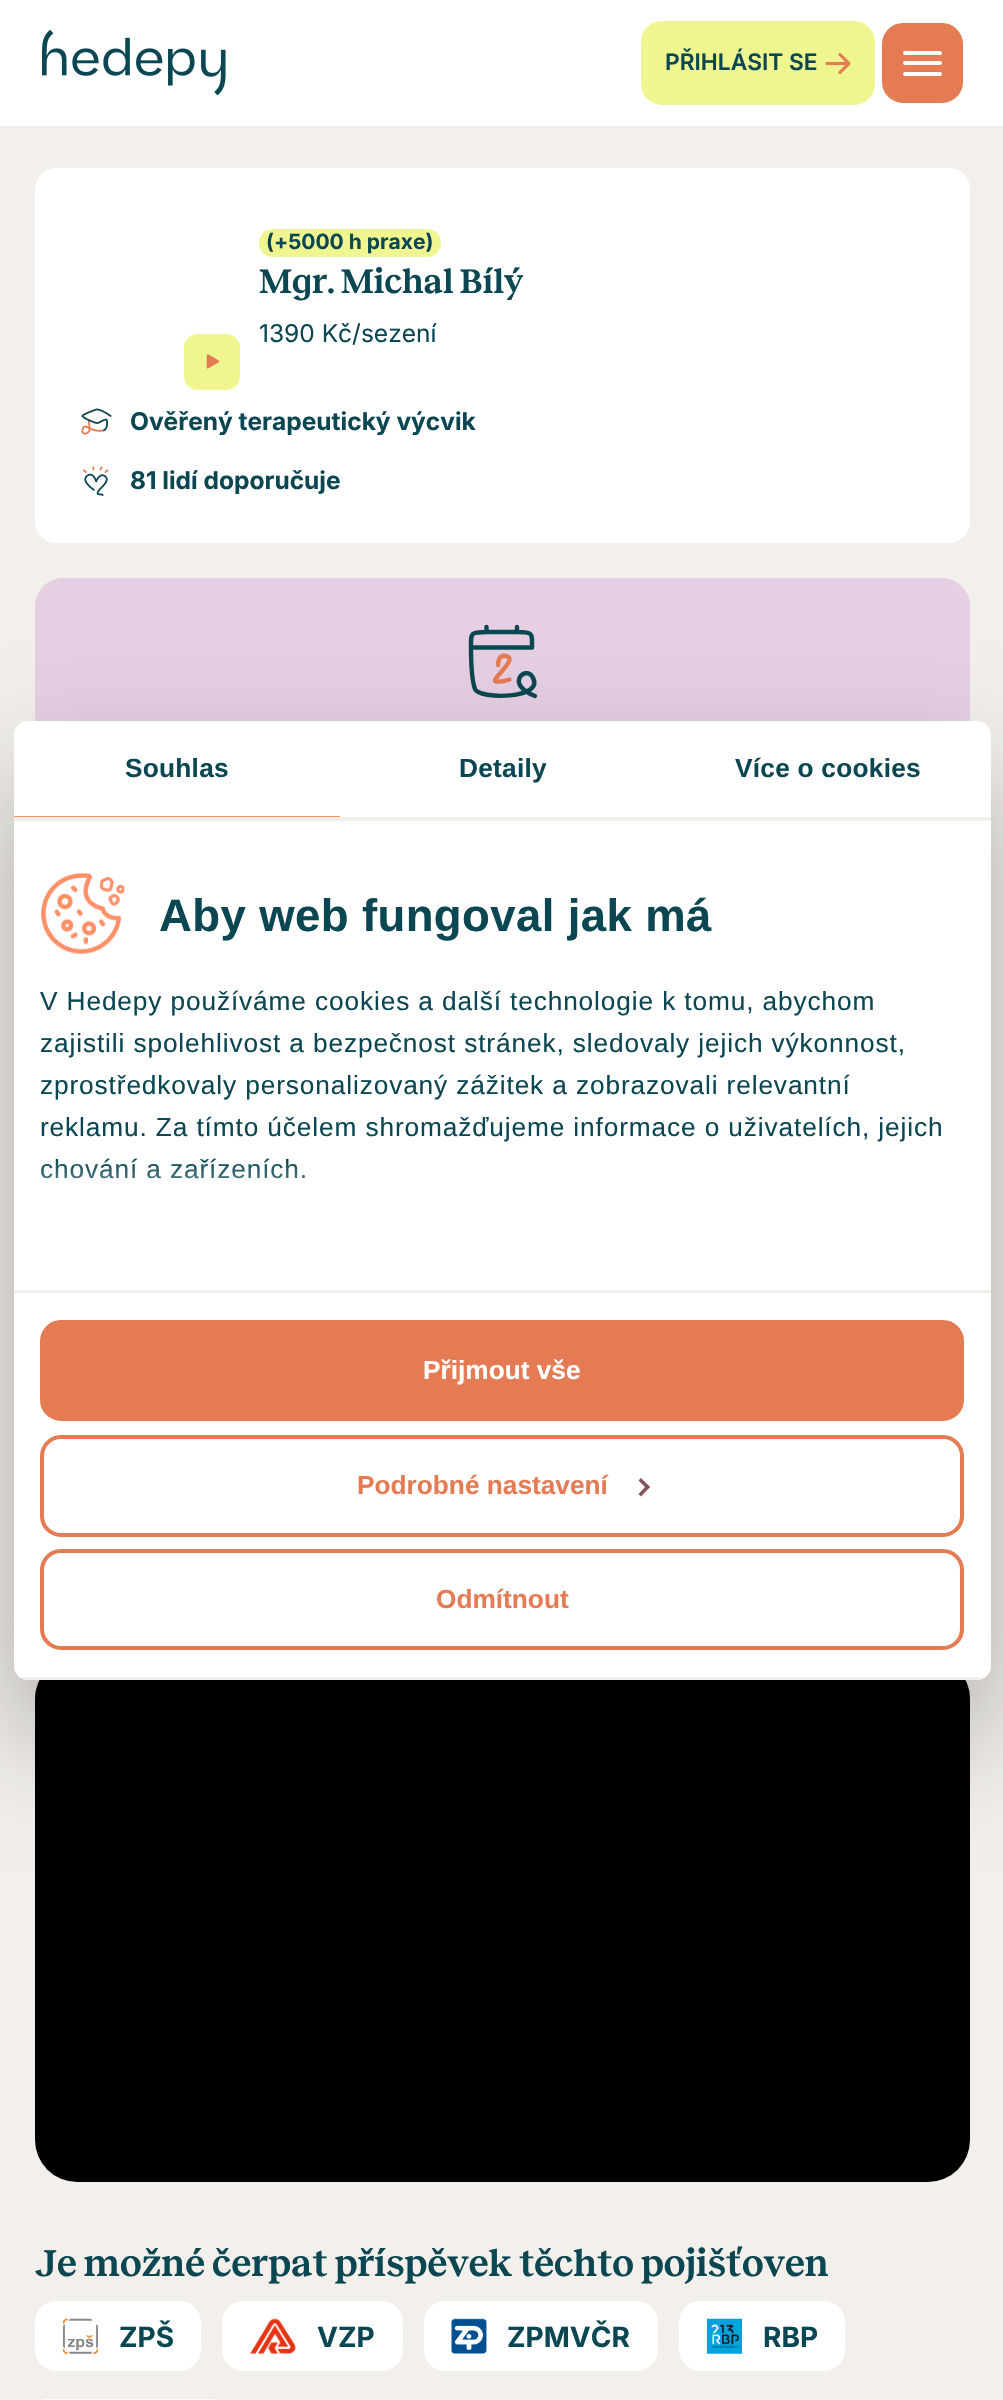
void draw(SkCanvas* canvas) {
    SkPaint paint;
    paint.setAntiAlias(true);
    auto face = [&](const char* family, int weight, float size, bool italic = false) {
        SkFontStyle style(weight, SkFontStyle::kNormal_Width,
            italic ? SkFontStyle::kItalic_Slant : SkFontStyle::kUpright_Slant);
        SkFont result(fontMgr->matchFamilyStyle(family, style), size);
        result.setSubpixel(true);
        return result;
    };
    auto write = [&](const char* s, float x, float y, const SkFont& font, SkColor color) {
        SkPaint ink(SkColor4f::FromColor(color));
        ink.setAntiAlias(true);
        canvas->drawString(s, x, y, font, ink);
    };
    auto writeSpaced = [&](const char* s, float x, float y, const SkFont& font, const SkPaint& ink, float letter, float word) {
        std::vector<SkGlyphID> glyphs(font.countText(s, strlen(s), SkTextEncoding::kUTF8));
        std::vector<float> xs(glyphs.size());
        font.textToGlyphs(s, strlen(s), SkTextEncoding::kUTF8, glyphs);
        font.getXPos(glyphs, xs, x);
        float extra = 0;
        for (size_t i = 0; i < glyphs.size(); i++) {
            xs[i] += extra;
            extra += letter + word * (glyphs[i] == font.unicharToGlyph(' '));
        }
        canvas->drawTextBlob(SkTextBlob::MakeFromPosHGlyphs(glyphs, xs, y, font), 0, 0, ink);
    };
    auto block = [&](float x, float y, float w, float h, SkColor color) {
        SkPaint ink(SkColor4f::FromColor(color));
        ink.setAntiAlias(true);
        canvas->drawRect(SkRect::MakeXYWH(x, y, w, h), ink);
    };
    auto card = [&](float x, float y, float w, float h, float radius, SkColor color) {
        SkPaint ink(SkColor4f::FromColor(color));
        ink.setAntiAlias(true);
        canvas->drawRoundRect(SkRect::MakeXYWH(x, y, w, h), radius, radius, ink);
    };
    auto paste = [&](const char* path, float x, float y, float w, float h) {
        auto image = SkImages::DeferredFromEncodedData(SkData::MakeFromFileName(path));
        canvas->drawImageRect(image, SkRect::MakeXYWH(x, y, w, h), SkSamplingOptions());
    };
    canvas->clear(SkColorSetRGB(243, 240, 235));
    block(0, 0, 1003, 126, SK_ColorWHITE);
    paste("pic1.png", 42, 30, 184, 66);
    paint.setColor(SkColorSetRGB(239, 246, 144));
    canvas->drawRoundRect(SkRect::MakeXYWH(643, 23, 230, 80), 19, 19, paint);
    paint.setStyle(SkPaint::kStroke_Style);
    paint.setStrokeWidth(4);
    canvas->drawRoundRect(SkRect::MakeXYWH(643, 23, 230, 80), 19, 19, paint);
    auto kFont1 = face("Inter", 600, 22.75f);
    write("PŘIHLÁSIT SE", 665, 70, kFont1, SkColorSetRGB(11, 71, 82));
    paste("pic2.png", 825, 53, 26, 22);
    paint.setStyle(SkPaint::kFill_Style);
    paint.setColor(SkColorSetRGB(228, 123, 83));
    canvas->drawRoundRect(SkRect::MakeXYWH(884, 25, 77, 76), 19, 19, paint);
    paint.setStyle(SkPaint::kStroke_Style);
    canvas->drawRoundRect(SkRect::MakeXYWH(884, 25, 77, 76), 19, 19, paint);
    card(903, 51, 39, 4, 2, SK_ColorWHITE);
    card(903, 61, 39, 4, 2, SK_ColorWHITE);
    card(903, 72, 39, 4, 2, SK_ColorWHITE);
    card(35, 168, 935, 375, 21, SK_ColorWHITE);
    card(259, 229, 182, 28, 14, SkColorSetRGB(239, 246, 144));
    auto kFont2 = face("Inter", 700, 21);
    write("(+5000 h praxe)", 266, 249, kFont2, SkColorSetRGB(11, 71, 82));
    auto kFont3 = face("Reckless", 600, 35);
    write("Mgr. Michal Bílý", 259, 293, kFont3, SkColorSetRGB(11, 71, 82));
    auto kFont4 = face("Inter", 400, 24.5f);
    write("1390 Kč/sezení", 259, 342, kFont4, SkColorSetRGB(11, 71, 82));
    card(184, 334, 56, 56, 14, SkColorSetRGB(239, 246, 144));
    paste("pic3.png", 206, 354, 14, 15);
    paste("pic4.png", 81, 408, 31, 27);
    auto kFont5 = face("Inter", 700, 24.5f);
    write("Ověřený terapeutický výcvik", 130, 430, kFont5, SkColorSetRGB(11, 71, 82));
    paste("pic5.png", 83, 466, 26, 30);
    write("81 lidí doporučuje", 130, 489, kFont5, SkColorSetRGB(11, 71, 82));
    card(35, 578, 935, 358, 28, SkColorSetRGB(230, 207, 227));
    paint.setStrokeWidth(4.4f);
    paint.setStrokeCap(SkPaint::kRound_Cap);
    paint.setStrokeJoin(SkPaint::kRound_Join);
    paint.setColor(SkColorSetRGB(11, 71, 82));
    canvas->drawPath(SkPathBuilder().moveTo(535, 696).cubicTo(504, 684, 526, 665, 532.5f, 677).cubicTo(546, 699.5f, 478.5f, 699.5f, 475, 689).cubicTo(471, 678, 471, 647.5f, 471, 647.5f).moveTo(471, 647.5f).cubicTo(471, 633.5f, 470, 632, 486, 632).lineTo(517.5f, 632).cubicTo(533.5f, 632, 532, 633.5f, 532, 647.5f).close().moveTo(486.5f, 632).lineTo(486.5f, 627).moveTo(517, 631.5f).lineTo(517, 627).detach(), paint);
    paint.setColor(SkColorSetRGB(228, 123, 83));
    canvas->drawPath(SkPathBuilder().moveTo(498, 665).cubicTo(498, 665, 497.5f, 653, 507.5f, 656.5f).cubicTo(517, 660.5f, 489.5f, 680.5f, 496, 681.5f).cubicTo(502.5f, 682, 509.5f, 679.5f, 509.5f, 679.5f).detach(), paint);
    card(35, 1657, 935, 525, 42, SK_ColorBLACK);
    paint.setStyle(SkPaint::kFill_Style);
    {
        const SkColor colors[] = {SkColorSetARGB(171, 0, 0, 0), SkColorSetARGB(138, 0, 0, 0), SkColorSetARGB(38, 0, 0, 0), SkColorSetARGB(13, 0, 0, 0), SkColorSetARGB(0, 0, 0, 0)};
        const float stops[] = {0, 0.14f, 0.54f, 0.72f, 0.94f};
        const SkPoint ends[] = {{502, 1657}, {502, 1831}};
        paint.setShader(SkGradientShader::MakeLinear(ends, colors, stops, 5, SkTileMode::kClamp));
        paint.setAlpha(255);
    }
    canvas->drawPath(SkPathBuilder().moveTo(77, 1657).lineTo(928, 1657).cubicTo(951, 1657, 970, 1676, 970, 1699).lineTo(970, 1831).lineTo(35, 1831).lineTo(35, 1699).cubicTo(35, 1676, 54, 1657, 77, 1657).close().detach(), paint);
    auto kFont6 = face("Reckless", 600, 38.5f);
    write("Je možné čerpat příspěvek těchto pojišťoven", 35, 2276, kFont6, SkColorSetRGB(11, 71, 82));
    card(35, 2301, 166, 70, 21, SK_ColorWHITE);
    paste("pic6.png", 63, 2318, 35, 36);
    auto kFont7 = face("Inter", 700, 28);
    write("ZPŠ", 119, 2347, kFont7, SkColorSetRGB(11, 71, 82));
    card(222, 2301, 181, 70, 21, SK_ColorWHITE);
    paste("pic7.png", 250, 2318, 46, 36);
    write("VZP", 317, 2347, kFont7, SkColorSetRGB(11, 71, 82));
    card(424, 2301, 234, 70, 21, SK_ColorWHITE);
    paste("pic8.png", 451, 2318, 36, 36);
    write("ZPMVČR", 507, 2347, kFont7, SkColorSetRGB(11, 71, 82));
    card(679, 2301, 166, 70, 21, SK_ColorWHITE);
    paste("pic9.png", 707, 2318, 35, 36);
    write("RBP", 763, 2347, kFont7, SkColorSetRGB(11, 71, 82));
    card(35, 2399, 187, 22, 21, SK_ColorWHITE);
    paint.setShader(nullptr);
    paint.setColor(SkColorSetARGB(77, 0, 0, 0));
    paint.setMaskFilter(SkMaskFilter::MakeBlur(kNormal_SkBlurStyle, 59.5f));
    canvas->drawRoundRect(SkRect::MakeXYWH(14, 777, 977, 959), 14, 14, paint);
    paint.setMaskFilter(nullptr);
    card(14, 721, 977, 959, 14, SK_ColorWHITE);
    block(14, 817, 977, 4, SkColorSetRGB(243, 240, 235));
    block(14, 816, 326, 1, SkColorSetRGB(255, 143, 103));
    auto kFont8 = face("Liberation Sans", 700, 26.25f);
    paint.setColor(SkColorSetRGB(11, 71, 82));
    writeSpaced("Souhlas", 125, 777, kFont8, paint, 0.25f, 0);
    writeSpaced("Detaily", 459, 777, kFont8, paint, 0.25f, 0);
    writeSpaced("Více o cookies", 735, 777, kFont8, paint, 0.25f, 0);
    block(14, 1290, 977, 3, SkColorSetRGB(243, 240, 235));
    paste("pic10.png", 41, 873, 84, 82);
    auto kFont9 = face("Liberation Sans", 700, 45.5f);
    writeSpaced("Aby web fungoval jak má", 159, 931, kFont9, paint, 0.4f, 0);
    auto kFont10 = face("Liberation Sans", 400, 26.25f);
    writeSpaced("V Hedepy používáme cookies a další technologie k tomu, abychom", 40, 1010, kFont10, paint, 0.88f, 0);
    writeSpaced("zajistili spolehlivost a bezpečnost stránek, sledovaly jejich výkonnost,", 40, 1052, kFont10, paint, 0.88f, 0);
    writeSpaced("zprostředkovaly personalizovaný zážitek a zobrazovali relevantní", 40, 1094, kFont10, paint, 0.88f, 0);
    writeSpaced("reklamu. Za tímto účelem shromažďujeme informace o uživatelích, jejich", 40, 1136, kFont10, paint, 0.88f, 0);
    writeSpaced("chování a zařízeních.", 40, 1178, kFont10, paint, 0.88f, 0);
    {
        const SkColor colors[] = {SK_ColorWHITE, SkColorSetARGB(204, 255, 255, 255), SkColorSetARGB(0, 255, 255, 255)};
        const float stops[] = {0, 0.5f, 1};
        const SkPoint ends[] = {{491, 1290}, {491, 1159}};
        paint.setShader(SkGradientShader::MakeLinear(ends, colors, stops, 3, SkTileMode::kClamp));
        paint.setAlpha(255);
    }
    canvas->drawRect(SkRect::MakeXYWH(41, 1161, 264, 18), paint);
    canvas->save();
    canvas->clipPath(SkPathBuilder().moveTo(28, 721).lineTo(977, 721).cubicTo(984.5f, 721, 991, 727.5f, 991, 735).lineTo(991, 1666).cubicTo(991, 1673.5f, 984.5f, 1680, 977, 1680).lineTo(28, 1680).cubicTo(20.5f, 1680, 14, 1673.5f, 14, 1666).lineTo(14, 735).cubicTo(14, 727.5f, 20.5f, 721, 28, 721).close().detach(), true);
    block(14, 1677, 977, 3, SkColorSetRGB(243, 240, 235));
    canvas->restore();
    paint.setShader(nullptr);
    paint.setColor(SkColorSetRGB(228, 123, 83));
    canvas->drawRoundRect(SkRect::MakeXYWH(42, 1322, 920, 97), 19, 19, paint);
    paint.setStyle(SkPaint::kStroke_Style);
    paint.setStrokeWidth(4);
    paint.setStrokeCap(SkPaint::kButt_Cap);
    paint.setStrokeJoin(SkPaint::kMiter_Join);
    canvas->drawRoundRect(SkRect::MakeXYWH(42, 1322, 920, 97), 19, 19, paint);
    write("Přijmout vše", 423, 1379, kFont8, SK_ColorWHITE);
    canvas->drawRoundRect(SkRect::MakeXYWH(42, 1437, 920, 98), 19, 19, paint);
    write("Podrobné nastavení", 357, 1494, kFont8, SkColorSetRGB(228, 123, 83));
    paint.setStyle(SkPaint::kFill_Style);
    paint.setColor(SkColorSetRGB(130, 85, 92));
    canvas->drawPath(SkPathBuilder().moveTo(641, 1478).lineTo(650, 1487).lineTo(647.5f, 1489.5f).lineTo(638.5f, 1480.5f).close().detach(), paint);
    canvas->drawPath(SkPathBuilder().moveTo(647.5f, 1484.5f).lineTo(650, 1487).lineTo(641, 1496.5f).lineTo(638.5f, 1494).close().detach(), paint);
    paint.setStyle(SkPaint::kStroke_Style);
    paint.setColor(SkColorSetRGB(228, 123, 83));
    canvas->drawRoundRect(SkRect::MakeXYWH(42, 1551, 920, 97), 19, 19, paint);
    write("Odmítnout", 436, 1608, kFont8, SkColorSetRGB(228, 123, 83));
}
